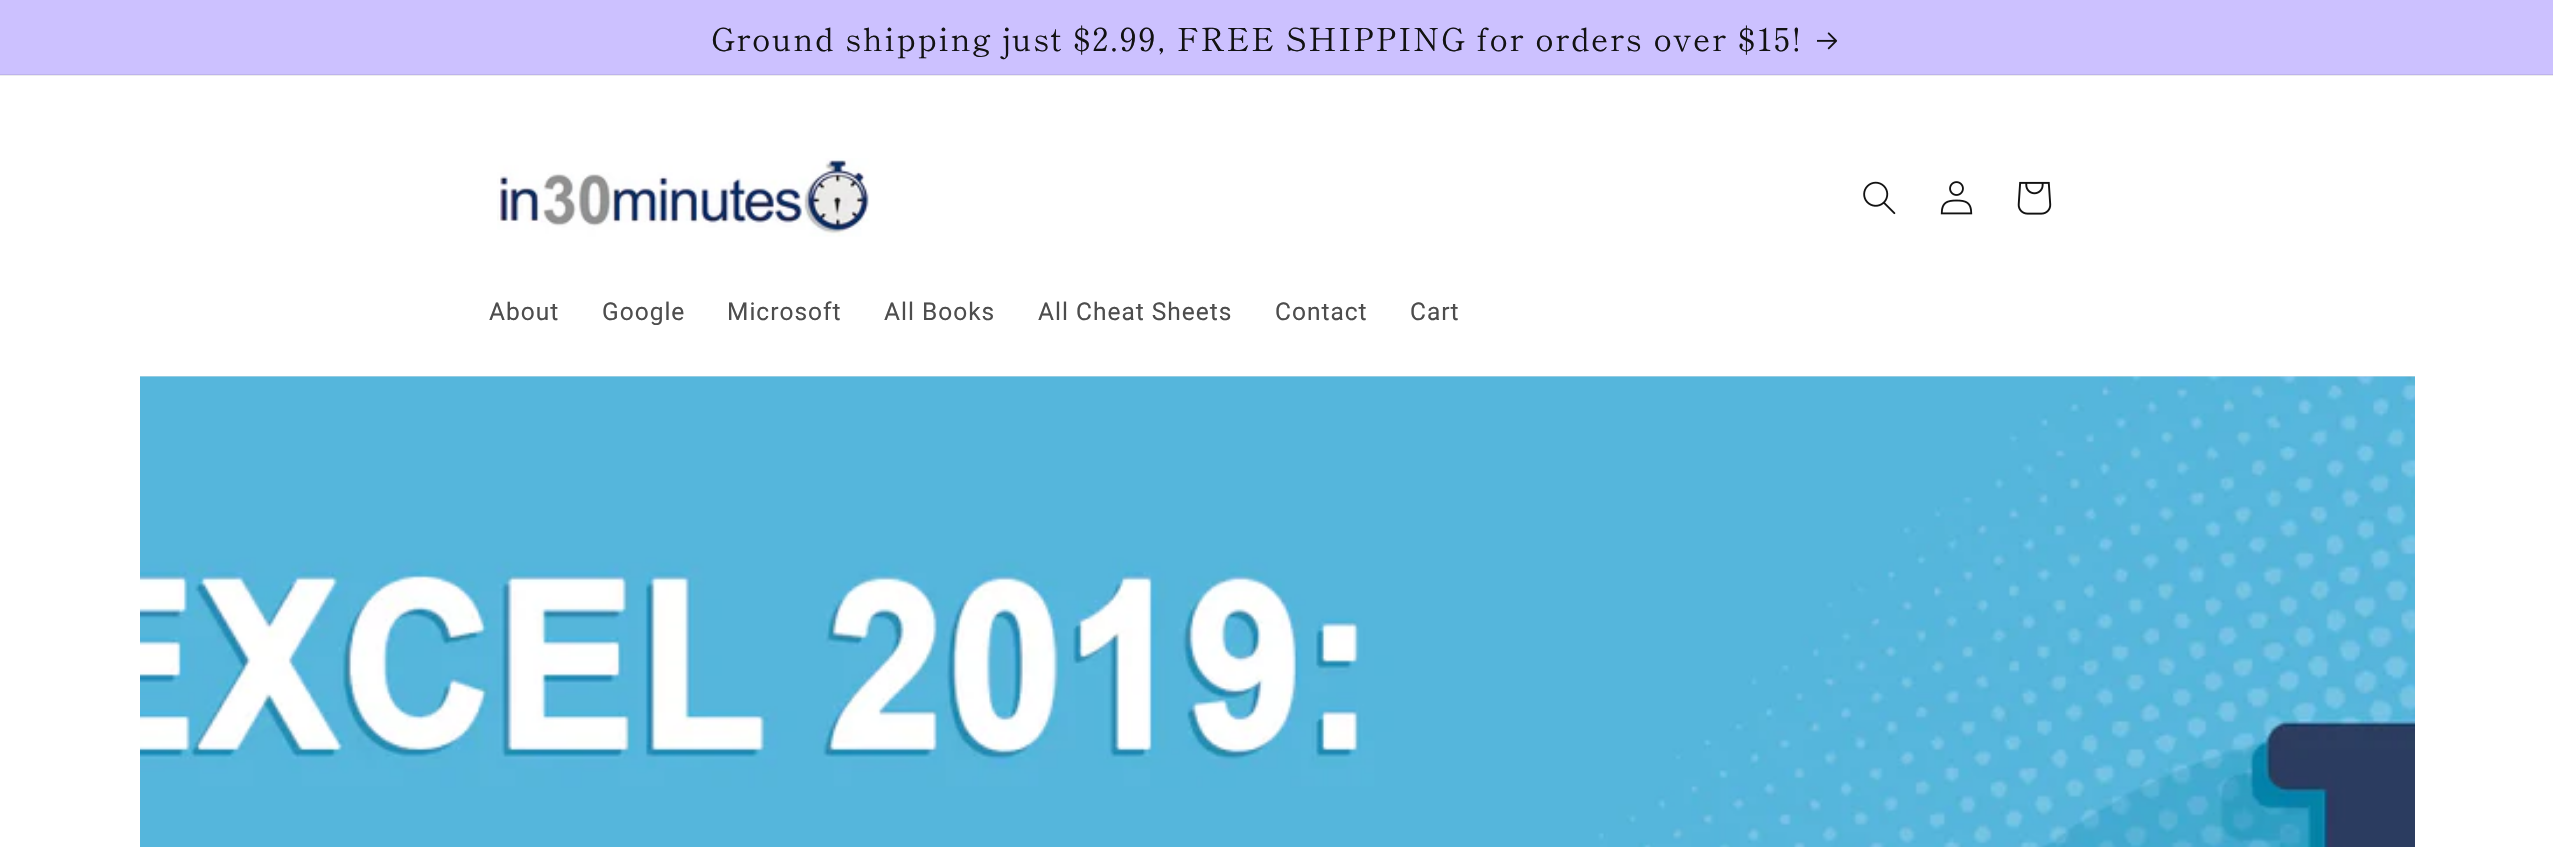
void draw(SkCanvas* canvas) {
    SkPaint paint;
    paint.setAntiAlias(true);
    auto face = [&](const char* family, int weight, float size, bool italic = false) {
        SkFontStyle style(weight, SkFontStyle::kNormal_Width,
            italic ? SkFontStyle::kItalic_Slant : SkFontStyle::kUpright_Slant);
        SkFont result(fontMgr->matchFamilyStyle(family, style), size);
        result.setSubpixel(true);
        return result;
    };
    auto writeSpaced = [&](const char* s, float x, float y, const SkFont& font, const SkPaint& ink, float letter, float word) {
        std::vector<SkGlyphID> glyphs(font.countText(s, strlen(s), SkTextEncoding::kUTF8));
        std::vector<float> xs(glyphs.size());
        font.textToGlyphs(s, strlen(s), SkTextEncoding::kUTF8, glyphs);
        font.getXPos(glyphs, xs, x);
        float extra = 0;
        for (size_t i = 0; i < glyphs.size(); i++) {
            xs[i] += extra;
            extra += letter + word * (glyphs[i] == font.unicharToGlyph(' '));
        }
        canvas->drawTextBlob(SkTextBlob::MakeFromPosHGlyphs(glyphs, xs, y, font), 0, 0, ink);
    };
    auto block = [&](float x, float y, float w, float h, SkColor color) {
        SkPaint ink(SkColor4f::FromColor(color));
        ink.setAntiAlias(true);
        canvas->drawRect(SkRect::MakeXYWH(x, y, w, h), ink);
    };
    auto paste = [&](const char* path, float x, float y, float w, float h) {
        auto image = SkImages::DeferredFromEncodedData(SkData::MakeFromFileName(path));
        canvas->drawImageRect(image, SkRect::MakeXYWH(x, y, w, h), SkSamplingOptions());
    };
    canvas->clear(SK_ColorWHITE);
    block(0, 75, 2553, 1, SkColorSetRGB(236, 236, 236));
    block(0, 0, 2553, 74, SkColorSetRGB(204, 193, 255));
    block(0, 74, 2553, 1, SkColorSetRGB(189, 179, 236));
    auto kFont1 = face("Shippori Mincho", 400, 31.85f);
    paint.setColor(SkColorSetRGB(18, 18, 18));
    writeSpaced("Ground shipping just $2.99, FREE SHIPPING for orders over $15!", 711, 51, kFont1, paint, 1.75f, 0);
    paste("pic1.png", 1817, 32, 21, 18);
    paste("pic2.png", 497, 158, 373, 79);
    paste("pic3.png", 1863, 181, 33, 34);
    paste("pic4.png", 1940, 181, 33, 34);
    paste("pic5.png", 2017, 181, 35, 34);
    auto kFont2 = face("Roboto", 400, 24.5f);
    paint.setColor(SkColorSetRGB(77, 77, 77));
    writeSpaced("About", 489, 320, kFont2, paint, 1, 0);
    writeSpaced("Google", 602, 320, kFont2, paint, 1, 0);
    writeSpaced("Microsoft", 727, 320, kFont2, paint, 1, 0);
    writeSpaced("All Books", 884, 320, kFont2, paint, 1, 0);
    writeSpaced("All Cheat Sheets", 1038, 320, kFont2, paint, 1, 0);
    writeSpaced("Contact", 1275, 320, kFont2, paint, 1, 0);
    writeSpaced("Cart", 1410, 320, kFont2, paint, 1, 0);
    block(140, 376, 2275, 1, SkColorSetRGB(232, 232, 232));
    paste("pic6.png", 140, 376, 2275, 471);
}
